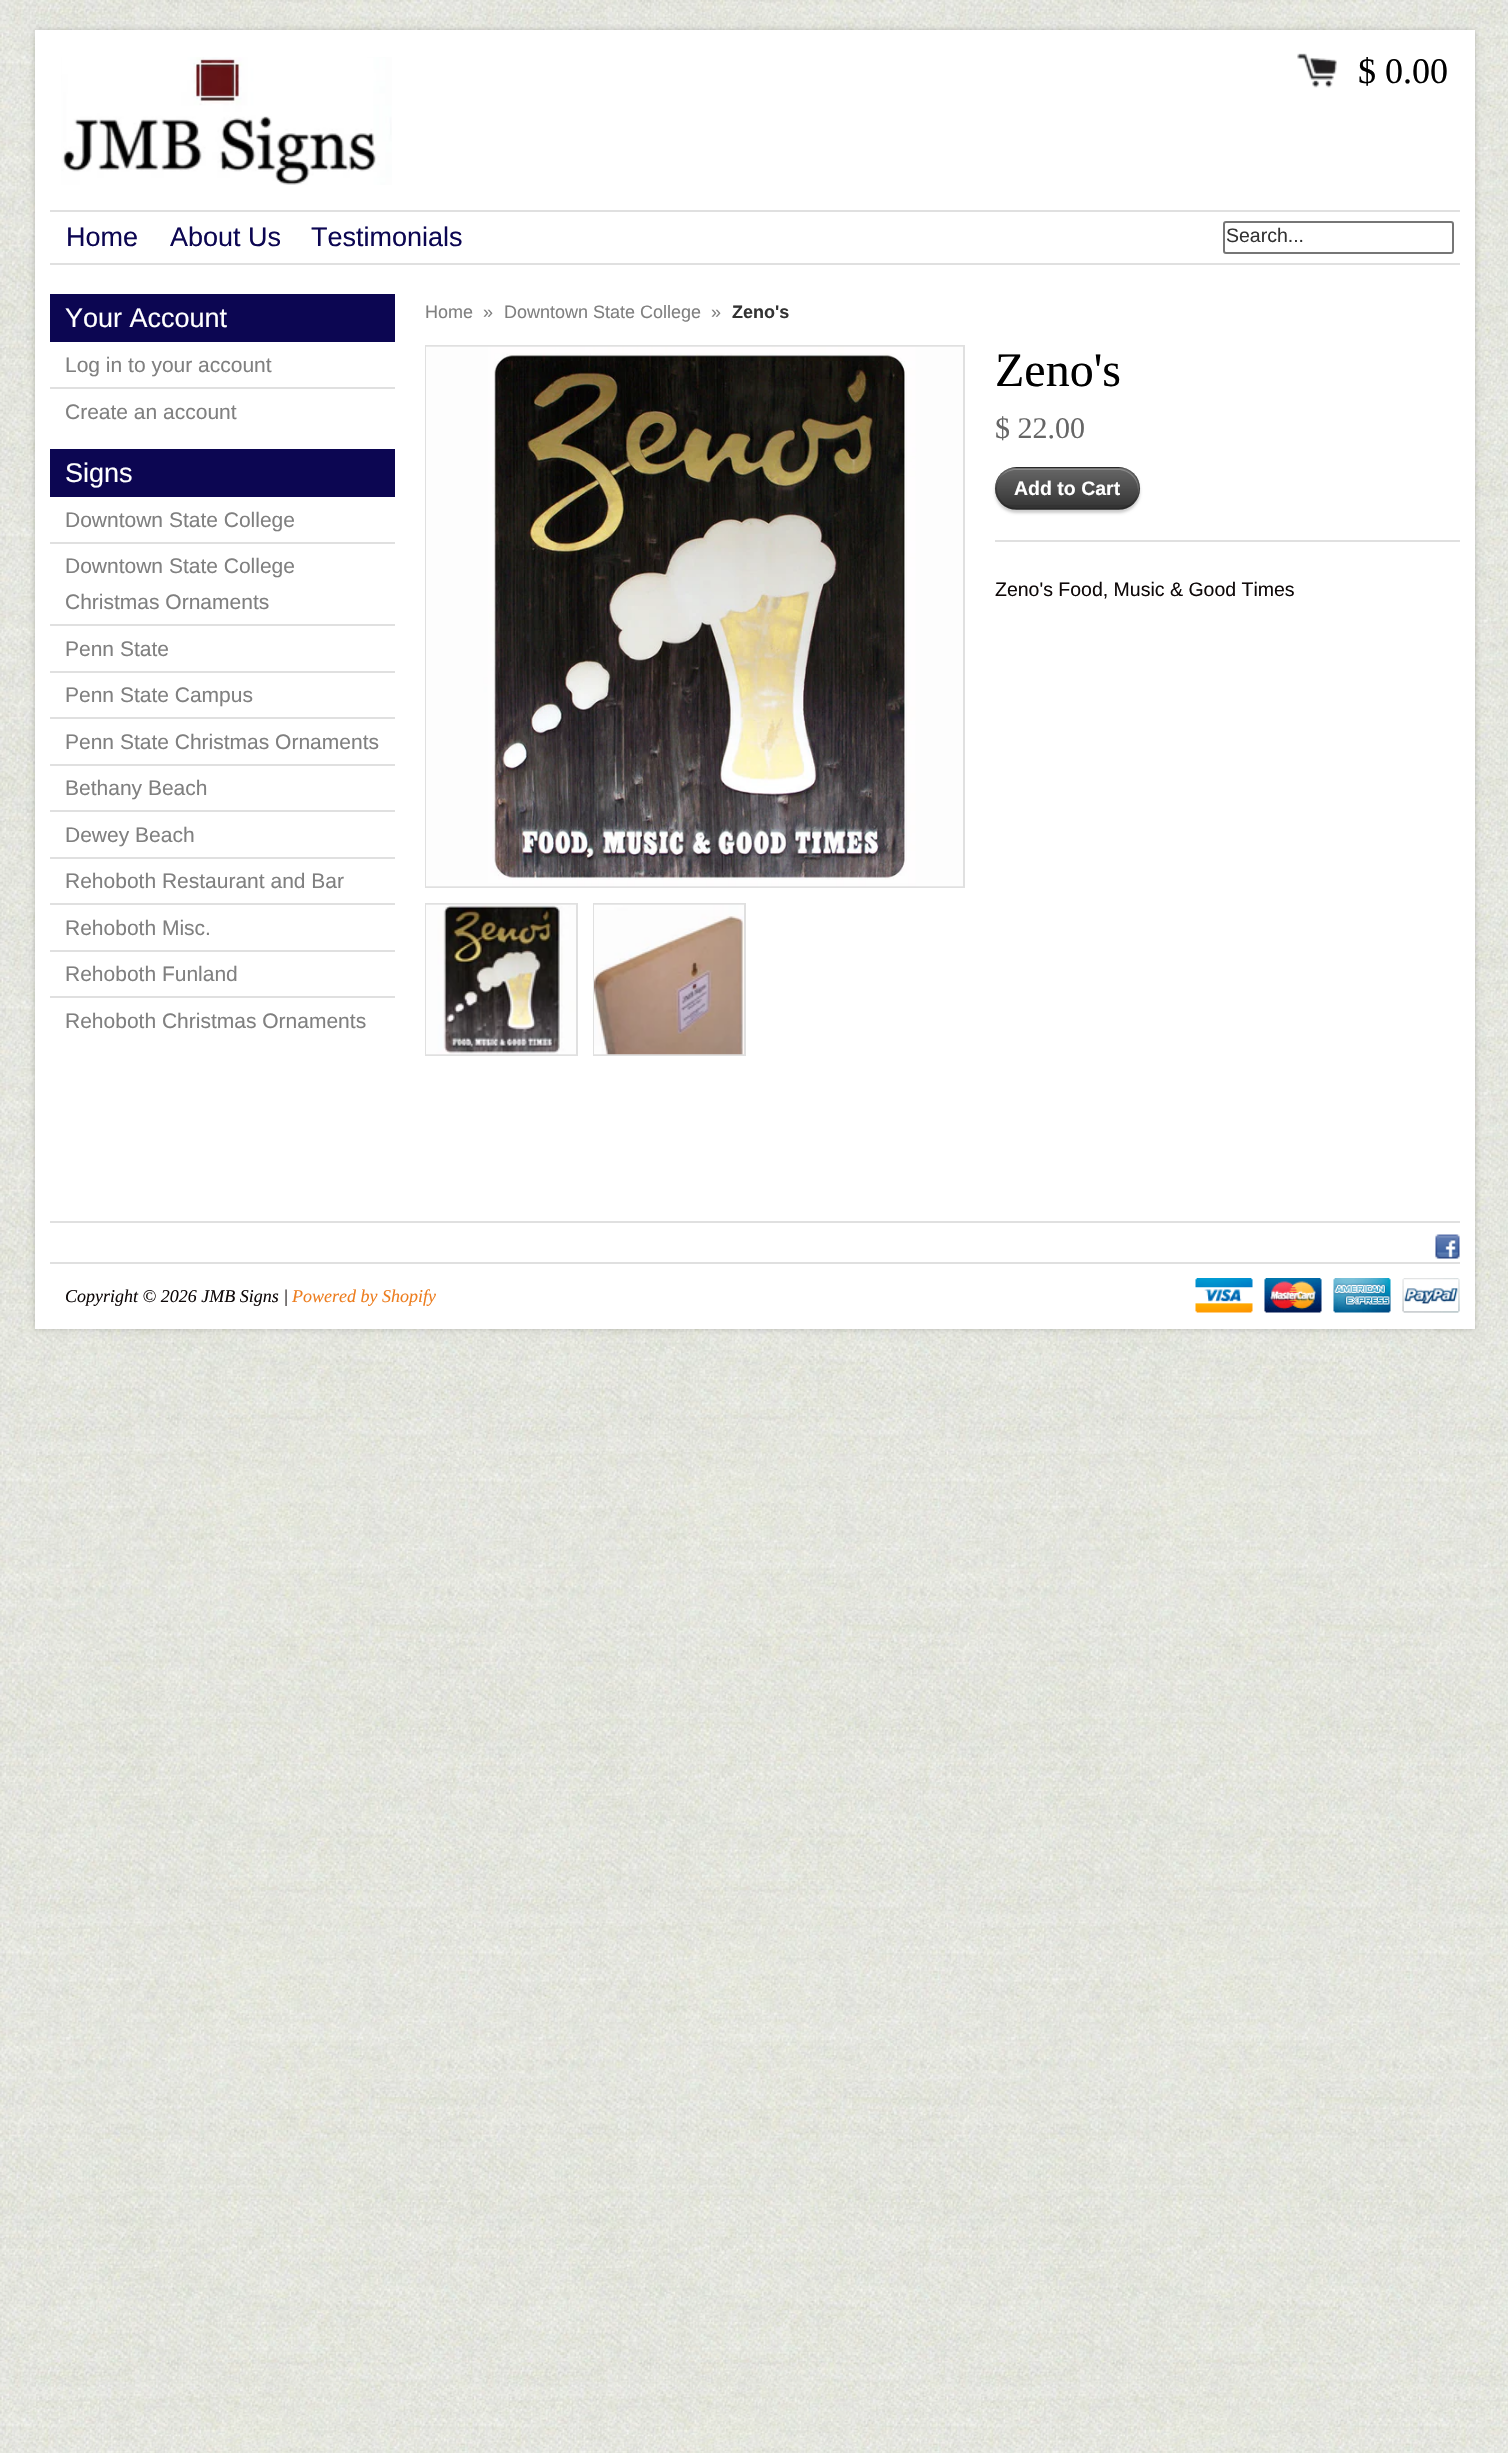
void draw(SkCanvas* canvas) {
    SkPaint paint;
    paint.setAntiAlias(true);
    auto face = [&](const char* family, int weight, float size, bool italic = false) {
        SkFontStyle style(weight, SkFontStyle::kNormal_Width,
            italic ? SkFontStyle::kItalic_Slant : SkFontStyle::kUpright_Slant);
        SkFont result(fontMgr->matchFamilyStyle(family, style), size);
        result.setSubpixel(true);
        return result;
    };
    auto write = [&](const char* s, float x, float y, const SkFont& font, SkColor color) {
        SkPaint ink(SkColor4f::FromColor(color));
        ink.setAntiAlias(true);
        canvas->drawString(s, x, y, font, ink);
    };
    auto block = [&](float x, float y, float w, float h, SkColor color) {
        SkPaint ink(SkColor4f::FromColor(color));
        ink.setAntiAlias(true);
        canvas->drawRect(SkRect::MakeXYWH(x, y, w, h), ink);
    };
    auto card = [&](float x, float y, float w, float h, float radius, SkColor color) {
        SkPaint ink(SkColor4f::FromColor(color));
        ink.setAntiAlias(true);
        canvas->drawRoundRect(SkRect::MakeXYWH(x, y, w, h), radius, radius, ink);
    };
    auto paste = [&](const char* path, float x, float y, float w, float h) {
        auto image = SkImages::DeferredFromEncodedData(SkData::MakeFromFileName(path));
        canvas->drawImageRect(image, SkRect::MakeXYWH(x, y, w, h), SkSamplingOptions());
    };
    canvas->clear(SK_ColorWHITE);
    paste("pic1.png", 0, 0, 1508, 2453);
    paint.setColor(SkColorSetARGB(51, 0, 0, 0));
    paint.setMaskFilter(SkMaskFilter::MakeBlur(kNormal_SkBlurStyle, 3));
    canvas->drawRect(SkRect::MakeXYWH(35, 30, 1440, 1299), paint);
    paint.setMaskFilter(nullptr);
    block(35, 30, 1440, 1299, SK_ColorWHITE);
    paste("pic2.png", 61, 57, 331, 128);
    paste("pic3.png", 1297, 53, 40, 35);
    auto kFont1 = face("Liberation Serif", 400, 36);
    write("$ 0.00", 1358, 83, kFont1, SK_ColorBLACK);
    block(50, 210, 1410, 2, SkColorSetRGB(224, 224, 224));
    block(50, 263, 1410, 2, SkColorSetRGB(224, 224, 224));
    auto kFont2 = face("Liberation Sans", 400, 27);
    write("Home", 66, 246, kFont2, SkColorSetRGB(12, 6, 82));
    write("About Us", 170, 246, kFont2, SkColorSetRGB(12, 6, 82));
    write("Testimonials", 311, 246, kFont2, SkColorSetRGB(12, 6, 82));
    paint.setStyle(SkPaint::kStroke_Style);
    paint.setStrokeWidth(2);
    paint.setColor(SkColorSetRGB(118, 118, 118));
    canvas->drawRoundRect(SkRect::MakeXYWH(1224, 222, 229, 31), 2, 2, paint);
    auto kFont3 = face("Liberation Sans", 400, 19.5f);
    write("Search...", 1226, 242, kFont3, SkColorSetRGB(51, 51, 51));
    block(50, 294, 345, 48, SkColorSetRGB(12, 6, 82));
    write("Your Account", 65, 327, kFont2, SK_ColorWHITE);
    block(50, 387, 345, 2, SkColorSetRGB(224, 224, 224));
    auto kFont4 = face("Liberation Sans", 400, 21);
    write("Log in to your account", 65, 372, kFont4, SkColorSetRGB(128, 128, 128));
    write("Create an account", 65, 419, kFont4, SkColorSetRGB(128, 128, 128));
    block(50, 449, 345, 48, SkColorSetRGB(12, 6, 82));
    write("Signs", 65, 482, kFont2, SK_ColorWHITE);
    block(50, 542, 345, 2, SkColorSetRGB(224, 224, 224));
    write("Downtown State College", 65, 527, kFont4, SkColorSetRGB(128, 128, 128));
    block(50, 624, 345, 2, SkColorSetRGB(224, 224, 224));
    write("Downtown State College", 65, 573, kFont4, SkColorSetRGB(128, 128, 128));
    write("Christmas Ornaments", 65, 609, kFont4, SkColorSetRGB(128, 128, 128));
    block(50, 671, 345, 2, SkColorSetRGB(224, 224, 224));
    write("Penn State", 65, 656, kFont4, SkColorSetRGB(128, 128, 128));
    block(50, 717, 345, 2, SkColorSetRGB(224, 224, 224));
    write("Penn State Campus", 65, 702, kFont4, SkColorSetRGB(128, 128, 128));
    block(50, 764, 345, 2, SkColorSetRGB(224, 224, 224));
    write("Penn State Christmas Ornaments", 65, 749, kFont4, SkColorSetRGB(128, 128, 128));
    block(50, 810, 345, 2, SkColorSetRGB(224, 224, 224));
    write("Bethany Beach", 65, 795, kFont4, SkColorSetRGB(128, 128, 128));
    block(50, 857, 345, 2, SkColorSetRGB(224, 224, 224));
    write("Dewey Beach", 65, 842, kFont4, SkColorSetRGB(128, 128, 128));
    block(50, 903, 345, 2, SkColorSetRGB(224, 224, 224));
    write("Rehoboth Restaurant and Bar", 65, 888, kFont4, SkColorSetRGB(128, 128, 128));
    block(50, 950, 345, 2, SkColorSetRGB(224, 224, 224));
    write("Rehoboth Misc.", 65, 935, kFont4, SkColorSetRGB(128, 128, 128));
    block(50, 996, 345, 2, SkColorSetRGB(224, 224, 224));
    write("Rehoboth Funland", 65, 981, kFont4, SkColorSetRGB(128, 128, 128));
    write("Rehoboth Christmas Ornaments", 65, 1028, kFont4, SkColorSetRGB(128, 128, 128));
    auto kFont5 = face("Liberation Sans", 400, 18);
    write("Home", 425, 318, kFont5, SkColorSetRGB(128, 128, 128));
    write("»", 483, 318, kFont5, SkColorSetRGB(128, 128, 128));
    write("Downtown State College", 504, 318, kFont5, SkColorSetRGB(128, 128, 128));
    write("»", 711, 318, kFont5, SkColorSetRGB(128, 128, 128));
    auto kFont6 = face("Liberation Sans", 700, 18);
    write("Zeno's", 732, 318, kFont6, SkColorSetRGB(51, 51, 51));
    paint.setColor(SkColorSetRGB(224, 224, 224));
    canvas->drawRect(SkRect::MakeXYWH(426, 346, 538, 541), paint);
    paste("pic4.png", 426, 346, 537, 541);
    canvas->drawRect(SkRect::MakeXYWH(426, 904, 151, 151), paint);
    paste("pic5.png", 426, 904, 150, 151);
    canvas->drawRect(SkRect::MakeXYWH(594, 904, 151, 151), paint);
    paste("pic6.png", 594, 904, 150, 151);
    auto kFont7 = face("Liberation Serif", 400, 48);
    write("Zeno's", 995, 386, kFont7, SK_ColorBLACK);
    auto kFont8 = face("Liberation Serif", 400, 30);
    write("$ 22.00", 995, 438, kFont8, SkColorSetRGB(102, 102, 102));
    block(995, 540, 465, 2, SkColorSetRGB(224, 224, 224));
    paint.setStyle(SkPaint::kFill_Style);
    paint.setColor(SkColorSetARGB(51, 0, 0, 0));
    paint.setMaskFilter(SkMaskFilter::MakeBlur(kNormal_SkBlurStyle, 1.5f));
    canvas->drawRoundRect(SkRect::MakeXYWH(995, 470, 145, 43), 21.5f, 21.5f, paint);
    paint.setMaskFilter(nullptr);
    card(995, 467, 145, 43, 21.5f, SkColorSetRGB(51, 51, 51));
    canvas->save();
    canvas->clipPath(SkPathBuilder().moveTo(1016.5f, 467).lineTo(1118.5f, 467).cubicTo(1130.5f, 467, 1140, 476.5f, 1140, 488.5f).cubicTo(1140, 500.5f, 1130.5f, 510, 1118.5f, 510).lineTo(1016.5f, 510).cubicTo(1004.5f, 510, 995, 500.5f, 995, 488.5f).cubicTo(995, 476.5f, 1004.5f, 467, 1016.5f, 467).close().detach(), true);
    {
        const SkColor colors[] = {SkColorSetARGB(0, 255, 255, 255), SkColorSetARGB(64, 255, 255, 255)};
        const float stops[] = {0, 1};
        const SkPoint ends[] = {{996, 509}, {996, 468}};
        paint.setShader(SkGradientShader::MakeLinear(ends, colors, stops, 2, SkTileMode::kClamp));
        paint.setAlpha(255);
    }
    canvas->drawRect(SkRect::MakeXYWH(995, 468, 145, 37), paint);
    {
        const SkColor colors[] = {SkColorSetARGB(0, 255, 255, 255), SkColorSetARGB(64, 255, 255, 255)};
        const float stops[] = {0, 1};
        const SkPoint ends[] = {{996, 549}, {996, 509}};
        paint.setShader(SkGradientShader::MakeLinear(ends, colors, stops, 2, SkTileMode::kClamp));
        paint.setAlpha(255);
    }
    canvas->drawRect(SkRect::MakeXYWH(1010, 509, 115, 1), paint);
    canvas->restore();
    paint.setShader(nullptr);
    paint.setColor(SkColorSetARGB(64, 255, 255, 255));
    canvas->drawPath(SkPathBuilder().moveTo(1016, 470).lineTo(1118, 470).cubicTo(1129, 470, 1138, 479, 1138, 490).cubicTo(1138, 494, 1137, 498, 1134, 502).cubicTo(1137, 498, 1139, 493, 1139, 488).cubicTo(1139, 477, 1130, 468, 1118, 468).lineTo(1016, 468).cubicTo(1005, 468, 996, 477, 996, 488).lineTo(996, 489).cubicTo(996, 479, 1005, 470, 1016, 470).close().detach(), paint);
    paint.setStyle(SkPaint::kStroke_Style);
    paint.setColor(SkColorSetARGB(51, 0, 0, 0));
    canvas->drawRoundRect(SkRect::MakeXYWH(996, 468, 143, 41), 20.5f, 20.5f, paint);
    auto kFont9 = face("Liberation Sans", 700, 19.5f);
    write("Add to Cart", 1014, 495, kFont9, SK_ColorWHITE);
    write("Zeno's Food, Music & Good Times", 995, 596, kFont3, SkColorSetRGB(15, 9, 9));
    block(50, 1221, 1410, 2, SkColorSetRGB(224, 224, 224));
    block(50, 1262, 1410, 2, SkColorSetRGB(224, 224, 224));
    paste("pic7.png", 1435, 1234, 25, 25);
    auto kFont10 = face("Liberation Serif", 400, 18, true);
    write("Copyright © 2026 JMB Signs |", 65, 1302, kFont10, SkColorSetRGB(15, 9, 9));
    write("Powered by Shopify", 292, 1302, kFont10, SkColorSetRGB(237, 125, 30));
    paste("pic8.png", 1195, 1278, 58, 35);
    paste("pic9.png", 1264, 1278, 58, 35);
    paste("pic10.png", 1333, 1278, 58, 35);
    paste("pic11.png", 1402, 1278, 58, 35);
}
